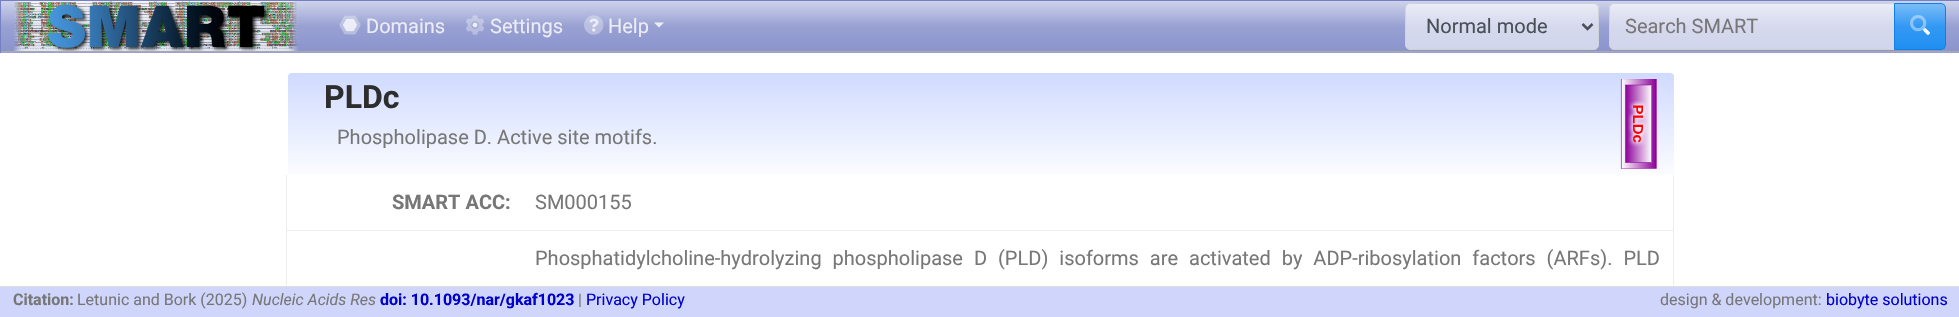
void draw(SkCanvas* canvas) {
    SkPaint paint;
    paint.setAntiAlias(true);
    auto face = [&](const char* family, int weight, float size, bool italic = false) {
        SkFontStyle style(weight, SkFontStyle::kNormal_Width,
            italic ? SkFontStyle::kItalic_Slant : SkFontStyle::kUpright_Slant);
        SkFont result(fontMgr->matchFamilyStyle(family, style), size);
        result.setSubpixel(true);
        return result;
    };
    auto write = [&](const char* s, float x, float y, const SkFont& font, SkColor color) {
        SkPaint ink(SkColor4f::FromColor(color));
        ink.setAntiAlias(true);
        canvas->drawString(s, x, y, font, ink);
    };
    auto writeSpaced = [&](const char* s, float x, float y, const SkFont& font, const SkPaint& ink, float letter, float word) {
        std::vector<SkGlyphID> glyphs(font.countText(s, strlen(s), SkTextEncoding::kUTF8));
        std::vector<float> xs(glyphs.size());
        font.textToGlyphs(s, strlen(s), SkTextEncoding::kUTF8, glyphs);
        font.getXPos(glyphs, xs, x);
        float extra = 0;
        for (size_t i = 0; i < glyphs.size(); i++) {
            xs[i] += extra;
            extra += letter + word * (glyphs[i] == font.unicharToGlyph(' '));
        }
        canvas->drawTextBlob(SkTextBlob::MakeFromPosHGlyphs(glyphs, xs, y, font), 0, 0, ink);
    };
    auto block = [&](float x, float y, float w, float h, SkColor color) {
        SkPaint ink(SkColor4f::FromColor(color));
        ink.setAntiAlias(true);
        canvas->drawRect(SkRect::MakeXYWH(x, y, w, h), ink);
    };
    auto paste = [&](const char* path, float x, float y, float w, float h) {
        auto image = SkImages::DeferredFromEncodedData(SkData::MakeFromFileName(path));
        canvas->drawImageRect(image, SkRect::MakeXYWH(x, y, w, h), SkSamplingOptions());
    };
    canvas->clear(SK_ColorWHITE);
    block(1, 52, 1958, 1, SkColorSetRGB(153, 161, 211));
    {
        const SkColor colors[] = {SkColorSetRGB(206, 210, 234), SkColorSetRGB(153, 161, 211), SkColorSetRGB(139, 148, 205)};
        const float stops[] = {0, 0.5f, 1};
        const SkPoint ends[] = {{980, 1.2f}, {980, 51}};
        paint.setShader(SkGradientShader::MakeLinear(ends, colors, stops, 3, SkTileMode::kClamp));
        paint.setAlpha(255);
    }
    canvas->drawRect(SkRect::MakeXYWH(1, 1, 1958, 50), paint);
    block(0, 0, 1959, 1, SkColorSetRGB(117, 128, 196));
    block(0, 51, 1959, 1, SkColorSetRGB(170, 170, 170));
    block(0, 0, 1, 53, SkColorSetRGB(117, 128, 196));
    paste("pic1.png", 14, 1, 285, 50);
    paste("pic3.png", 343, 18, 14, 14);
    paste("pic2.png", 339, 15, 22, 20);
    auto kFont1 = face("Roboto", 400, 20);
    write("Domains", 366, 33, kFont1, SkColorSetRGB(235, 236, 246));
    paste("pic5.png", 472, 22, 6, 6);
    paste("pic4.png", 466, 15, 19, 20);
    write("Settings", 490, 33, kFont1, SkColorSetRGB(235, 236, 246));
    paste("pic7.png", 589, 18, 10, 14);
    paste("pic6.png", 584, 15, 20, 20);
    write("Help", 608, 33, kFont1, SkColorSetRGB(235, 236, 246));
    paint.setShader(nullptr);
    paint.setColor(SkColorSetARGB(204, 255, 255, 255));
    canvas->drawPath(SkPathBuilder().moveTo(654, 22.5f).lineTo(664, 22.5f).lineTo(659, 27.5f).close().detach(), paint);
    paint.setColor(SkColorSetARGB(153, 255, 255, 255));
    canvas->drawRoundRect(SkRect::MakeXYWH(1405.5f, 3.5f, 193, 46), 4.5f, 4.5f, paint);
    paint.setStyle(SkPaint::kStroke_Style);
    paint.setStrokeWidth(1);
    paint.setColor(SkColorSetRGB(206, 212, 218));
    canvas->drawRoundRect(SkRect::MakeXYWH(1405.5f, 3.5f, 193, 46), 4.5f, 4.5f, paint);
    paint.setStrokeWidth(2.5f);
    paint.setColor(SkColorSetRGB(73, 80, 87));
    canvas->drawPath(SkPathBuilder().moveTo(1582.5f, 24).lineTo(1587.5f, 29).lineTo(1592.5f, 24).detach(), paint);
    write("Normal mode", 1426, 33, kFont1, SkColorSetRGB(73, 80, 87));
    paint.setStyle(SkPaint::kFill_Style);
    paint.setColor(SkColorSetARGB(153, 255, 255, 255));
    canvas->drawPath(SkPathBuilder().moveTo(1614, 3.5f).lineTo(1894.5f, 3.5f).lineTo(1894.5f, 49.5f).lineTo(1614, 49.5f).cubicTo(1611.5f, 49.5f, 1609.5f, 47.5f, 1609.5f, 45).lineTo(1609.5f, 8).cubicTo(1609.5f, 5.5f, 1611.5f, 3.5f, 1614, 3.5f).close().detach(), paint);
    paint.setStyle(SkPaint::kStroke_Style);
    paint.setStrokeWidth(1);
    paint.setColor(SkColorSetRGB(206, 212, 218));
    canvas->drawPath(SkPathBuilder().moveTo(1614, 3.5f).lineTo(1894.5f, 3.5f).lineTo(1894.5f, 49.5f).lineTo(1614, 49.5f).cubicTo(1611.5f, 49.5f, 1609.5f, 47.5f, 1609.5f, 45).lineTo(1609.5f, 8).cubicTo(1609.5f, 5.5f, 1611.5f, 3.5f, 1614, 3.5f).close().detach(), paint);
    write("Search SMART", 1625, 33, kFont1, SkColorSetRGB(119, 119, 119));
    paint.setStyle(SkPaint::kFill_Style);
    {
        const SkColor colors[] = {SkColorSetRGB(123, 189, 247), SkColorSetRGB(51, 153, 243), SkColorSetRGB(32, 143, 242)};
        const float stops[] = {0, 0.5f, 1};
        const SkPoint ends[] = {{1920, 3.7f}, {1920, 49}};
        paint.setShader(SkGradientShader::MakeLinear(ends, colors, stops, 3, SkTileMode::kClamp));
        paint.setAlpha(255);
    }
    canvas->drawRect(SkRect::MakeXYWH(1895, 4, 50, 45), paint);
    paint.setStyle(SkPaint::kStroke_Style);
    paint.setShader(nullptr);
    paint.setColor(SkColorSetRGB(14, 128, 230));
    canvas->drawPath(SkPathBuilder().moveTo(1894.5f, 3.5f).lineTo(1941, 3.5f).cubicTo(1943.5f, 3.5f, 1945.5f, 5.5f, 1945.5f, 8).lineTo(1945.5f, 45).cubicTo(1945.5f, 47.5f, 1943.5f, 49.5f, 1941, 49.5f).lineTo(1894.5f, 49.5f).close().detach(), paint);
    paste("pic9.png", 1923, 28, 7, 7);
    paste("pic8.png", 1910, 15, 17, 17);
    paint.setStyle(SkPaint::kFill_Style);
    {
        const SkColor colors[] = {SkColorSetRGB(207, 218, 255), SkColorSetRGB(251, 252, 255)};
        const float stops[] = {0, 1};
        const SkPoint ends[] = {{981, 72}, {981, 175}};
        paint.setShader(SkGradientShader::MakeLinear(ends, colors, stops, 2, SkTileMode::kClamp));
        paint.setAlpha(255);
    }
    canvas->drawRoundRect(SkRect::MakeXYWH(288, 73, 1386, 102), 4, 4, paint);
    auto kFont2 = face("Roboto", 700, 32);
    write("PLDc", 324, 108, kFont2, SkColorSetRGB(45, 45, 45));
    paste("pic10.png", 1620, 79, 37, 90);
    write("Phospholipase D. Active site motifs.", 337, 144, kFont1, SkColorSetRGB(119, 119, 119));
    block(286, 230, 1, 56, SkColorSetRGB(238, 238, 238));
    block(1673, 175, 1, 111, SkColorSetRGB(238, 238, 238));
    block(286, 230, 1388, 1, SkColorSetRGB(238, 238, 238));
    block(286, 175, 1, 56, SkColorSetRGB(238, 238, 238));
    auto kFont3 = face("Roboto", 700, 20);
    write("SMART ACC:", 392, 209, kFont3, SkColorSetRGB(119, 119, 119));
    write("SM000155", 535, 209, kFont1, SkColorSetRGB(119, 119, 119));
    paint.setShader(nullptr);
    paint.setColor(SkColorSetRGB(119, 119, 119));
    writeSpaced("Phosphatidylcholine-hydrolyzing phospholipase D (PLD) isoforms are", 535, 265, kFont1, paint, 0, 6);
    writeSpaced("activated by ADP-ribosylation factors (ARFs). PLD", 1189, 265, kFont1, paint, 0, 6);
    block(0, 287, 1959, 30, SkColorSetRGB(208, 214, 251));
    block(0, 286, 1959, 1, SkColorSetRGB(221, 221, 221));
    auto kFont4 = face("Roboto", 700, 16);
    write("Citation:", 13, 305, kFont4, SkColorSetRGB(119, 119, 119));
    auto kFont5 = face("Roboto", 400, 16);
    write("Letunic and Bork (2025)", 77, 305, kFont5, SkColorSetRGB(119, 119, 119));
    auto kFont6 = face("Roboto", 400, 16, true);
    write("Nucleic Acids Res", 252, 305, kFont6, SkColorSetRGB(119, 119, 119));
    write("doi: 10.1093/nar/gkaf1023", 380, 305, kFont4, SkColorSetRGB(0, 0, 205));
    write("|", 578, 305, kFont5, SkColorSetRGB(119, 119, 119));
    write("Privacy Policy", 586, 305, kFont5, SkColorSetRGB(0, 0, 205));
    write("design & development:", 1660, 305, kFont5, SkColorSetRGB(119, 119, 119));
    write("biobyte solutions", 1826, 305, kFont5, SkColorSetRGB(0, 0, 205));
}
